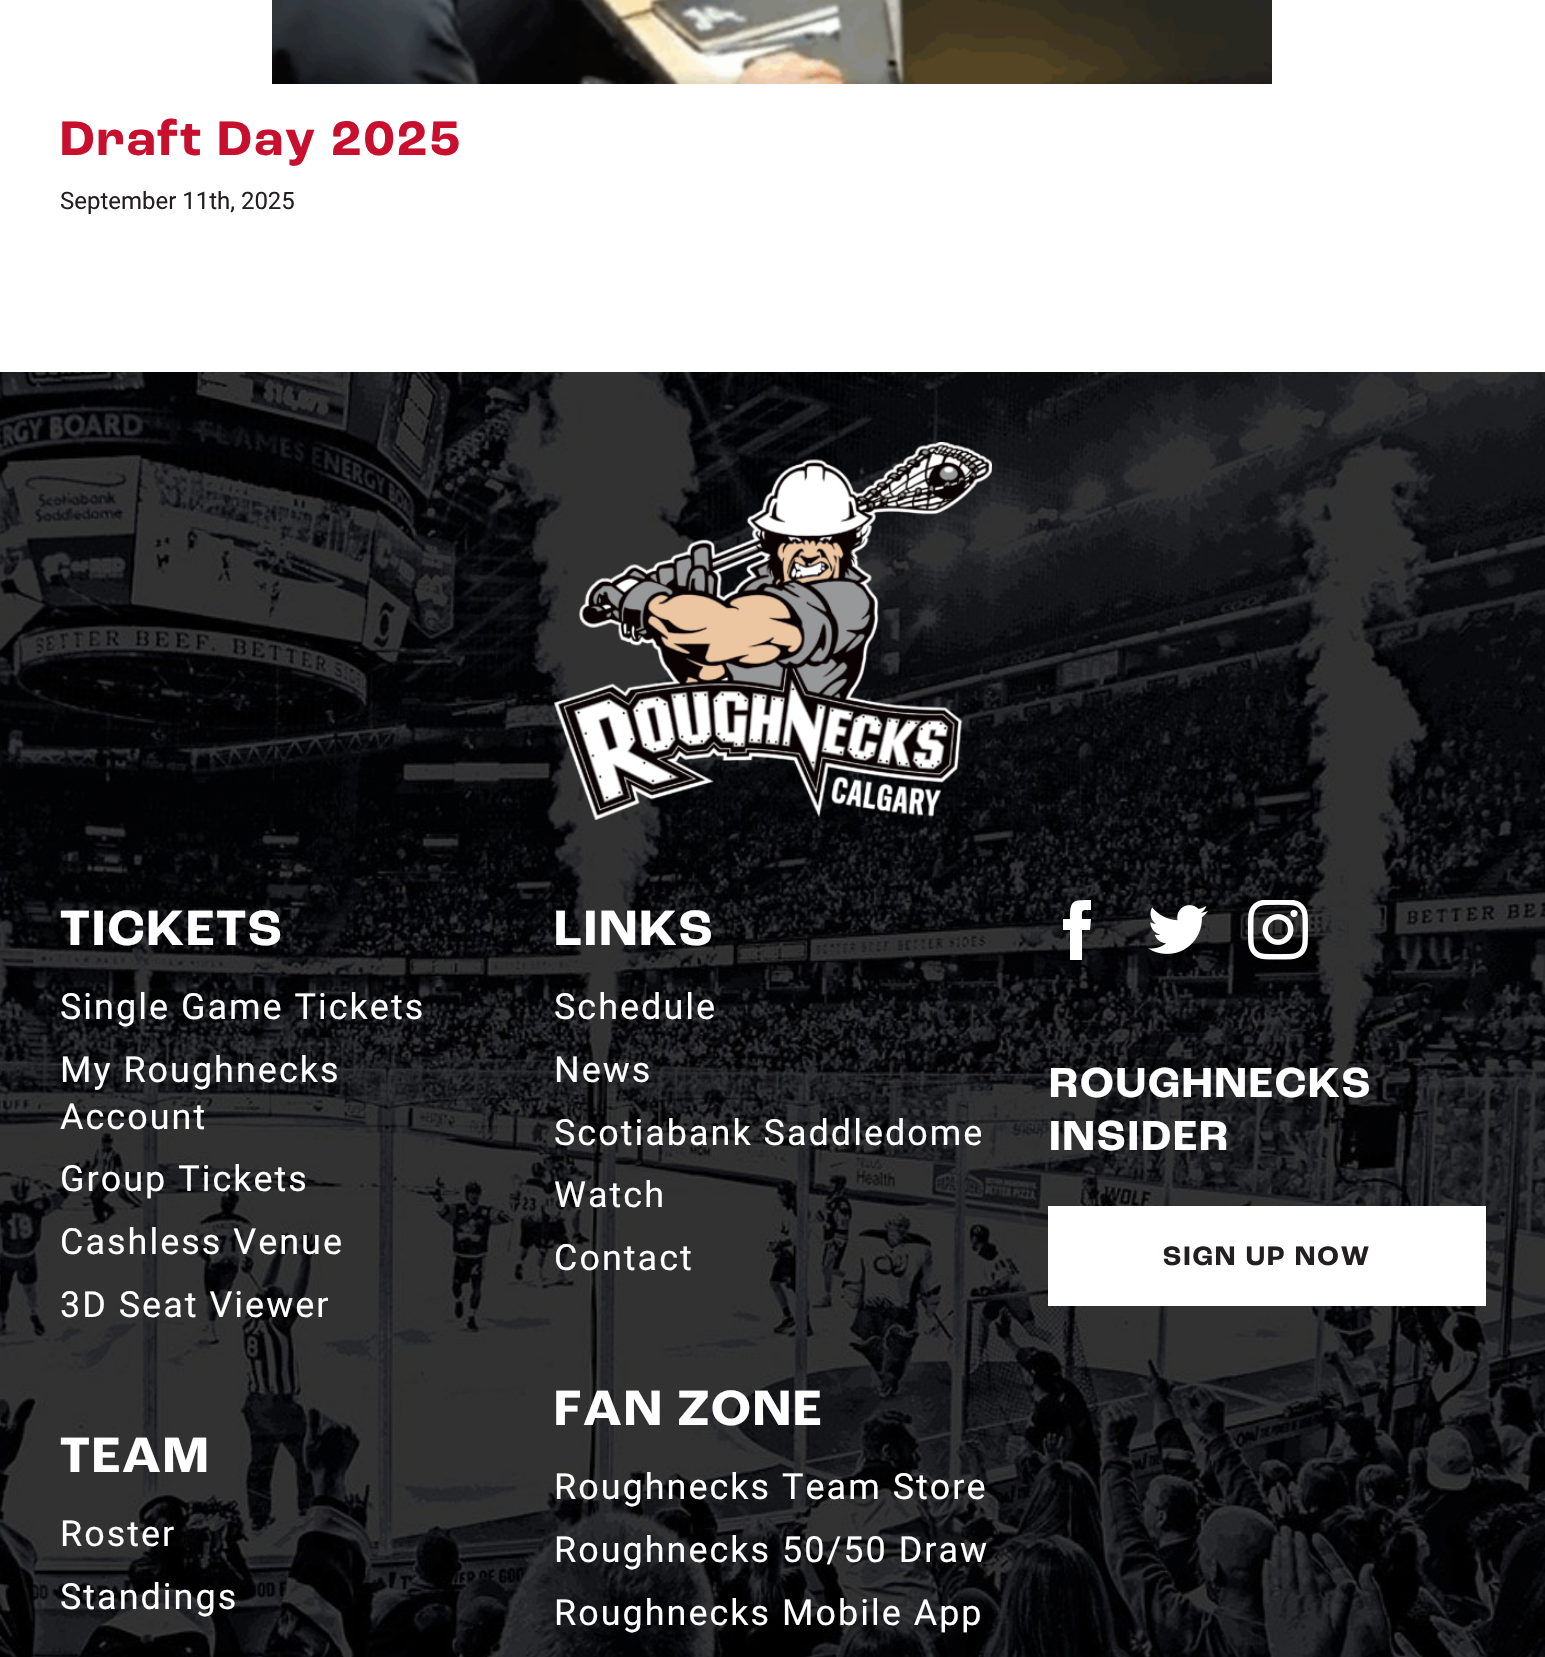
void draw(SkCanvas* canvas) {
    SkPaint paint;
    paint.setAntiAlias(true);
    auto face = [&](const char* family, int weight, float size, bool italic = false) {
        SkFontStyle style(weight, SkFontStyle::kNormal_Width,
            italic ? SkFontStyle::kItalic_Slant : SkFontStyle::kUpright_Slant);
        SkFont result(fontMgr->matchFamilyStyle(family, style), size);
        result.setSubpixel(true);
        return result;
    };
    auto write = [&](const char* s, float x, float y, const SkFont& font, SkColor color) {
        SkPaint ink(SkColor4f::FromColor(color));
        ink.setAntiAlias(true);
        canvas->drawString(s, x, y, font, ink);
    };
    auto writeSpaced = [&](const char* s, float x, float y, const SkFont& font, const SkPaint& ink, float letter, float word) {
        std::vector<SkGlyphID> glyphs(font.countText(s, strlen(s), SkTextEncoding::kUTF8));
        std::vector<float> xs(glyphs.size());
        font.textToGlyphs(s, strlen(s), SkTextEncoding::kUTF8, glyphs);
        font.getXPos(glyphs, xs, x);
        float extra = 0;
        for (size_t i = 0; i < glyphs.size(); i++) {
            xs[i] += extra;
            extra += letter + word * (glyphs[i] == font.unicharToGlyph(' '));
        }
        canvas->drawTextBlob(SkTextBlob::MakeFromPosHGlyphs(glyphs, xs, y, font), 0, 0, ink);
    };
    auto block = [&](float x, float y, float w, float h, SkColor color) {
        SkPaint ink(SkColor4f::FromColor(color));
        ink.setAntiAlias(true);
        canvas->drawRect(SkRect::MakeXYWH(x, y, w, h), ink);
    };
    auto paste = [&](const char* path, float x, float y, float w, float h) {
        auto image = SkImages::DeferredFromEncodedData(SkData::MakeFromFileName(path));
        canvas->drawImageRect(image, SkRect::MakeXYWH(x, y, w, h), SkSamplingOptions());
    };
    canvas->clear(SK_ColorWHITE);
    paste("pic1.png", 272, 0, 1000, 84);
    auto kFont1 = face("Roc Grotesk", 700, 51);
    paint.setColor(SkColorSetRGB(200, 16, 46));
    writeSpaced("Draft Day 2025", 60, 155, kFont1, paint, 2, 0);
    auto kFont2 = face("Roboto", 400, 24);
    write("September 11th, 2025", 60, 209, kFont2, SkColorSetRGB(35, 31, 32));
    paste("pic2.png", 0, 372, 1545, 1285);
    paste("pic3.png", 554, 442, 438, 378);
    auto kFont3 = face("Roc Grotesk", 700, 52);
    paint.setColor(SK_ColorWHITE);
    writeSpaced("TICKETS", 60, 945, kFont3, paint, 2, 0);
    auto kFont4 = face("Roboto", 400, 36);
    writeSpaced("Single Game Tickets", 60, 1019, kFont4, paint, 2, 0);
    writeSpaced("My Roughnecks", 60, 1082, kFont4, paint, 2, 0);
    writeSpaced("Account", 60, 1129, kFont4, paint, 2, 0);
    writeSpaced("Group Tickets", 60, 1191, kFont4, paint, 2, 0);
    writeSpaced("Cashless Venue", 60, 1254, kFont4, paint, 2, 0);
    writeSpaced("3D Seat Viewer", 60, 1317, kFont4, paint, 2, 0);
    writeSpaced("TEAM", 60, 1472, kFont3, paint, 2, 0);
    writeSpaced("Roster", 60, 1546, kFont4, paint, 2, 0);
    writeSpaced("Standings", 60, 1609, kFont4, paint, 2, 0);
    writeSpaced("LINKS", 554, 945, kFont3, paint, 2, 0);
    writeSpaced("Schedule", 554, 1019, kFont4, paint, 2, 0);
    writeSpaced("News", 554, 1082, kFont4, paint, 2, 0);
    writeSpaced("Scotiabank Saddledome", 554, 1145, kFont4, paint, 2, 0);
    writeSpaced("Watch", 554, 1207, kFont4, paint, 2, 0);
    writeSpaced("Contact", 554, 1270, kFont4, paint, 2, 0);
    writeSpaced("FAN ZONE", 554, 1425, kFont3, paint, 2, 0);
    writeSpaced("Roughnecks Team Store", 554, 1499, kFont4, paint, 2, 0);
    writeSpaced("Roughnecks 50/50 Draw", 554, 1562, kFont4, paint, 2, 0);
    writeSpaced("Roughnecks Mobile App", 554, 1625, kFont4, paint, 2, 0);
    canvas->drawPath(SkPathBuilder().moveTo(1082, 960).lineTo(1070, 960).lineTo(1070, 930).lineTo(1063, 930).lineTo(1063, 919).lineTo(1070, 919).cubicTo(1070, 900, 1072, 900, 1091, 900).lineTo(1091, 910).cubicTo(1081, 910, 1082, 909, 1082, 919).lineTo(1091, 919).lineTo(1090, 930).lineTo(1082, 930).close().detach(), paint);
    paste("pic4.png", 1148, 905, 60, 49);
    paste("pic5.png", 1248, 900, 60, 60);
    auto kFont5 = face("Roc Grotesk", 700, 44);
    writeSpaced("ROUGHNECKS", 1049, 1097, kFont5, paint, 2, 0);
    writeSpaced("INSIDER", 1049, 1150, kFont5, paint, 2, 0);
    block(1048, 1206, 438, 100, SK_ColorWHITE);
    auto kFont6 = face("Roc Grotesk", 700, 28);
    paint.setColor(SkColorSetRGB(35, 31, 32));
    writeSpaced("SIGN UP NOW", 1163, 1265, kFont6, paint, 2, 0);
}
